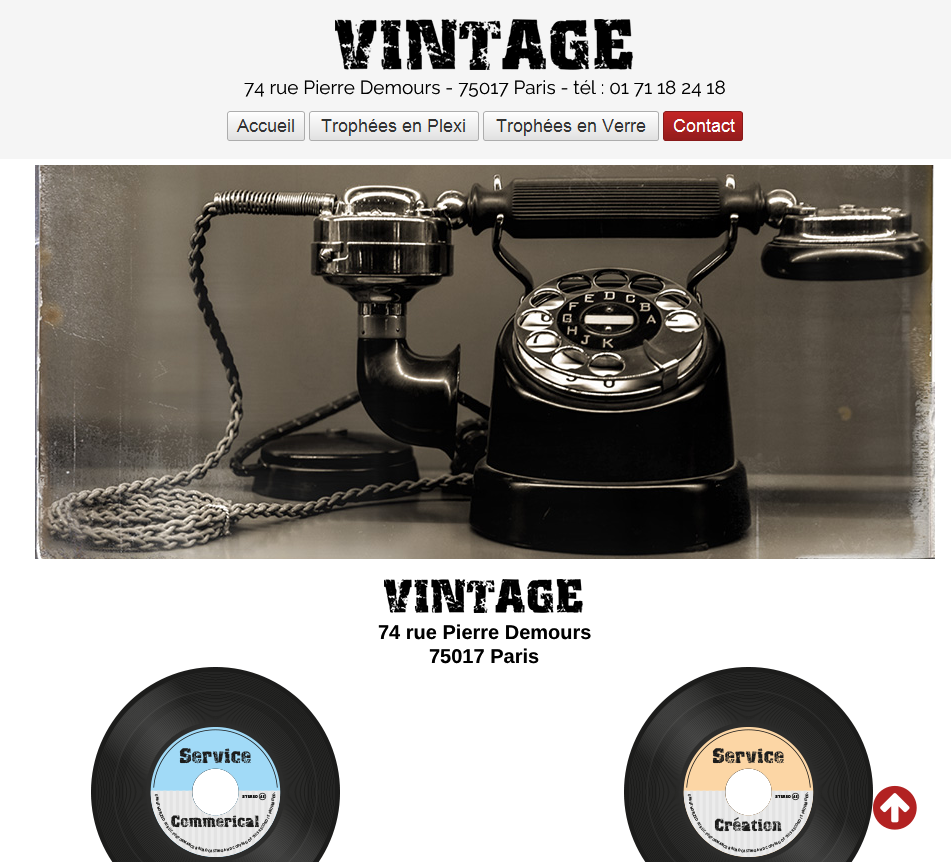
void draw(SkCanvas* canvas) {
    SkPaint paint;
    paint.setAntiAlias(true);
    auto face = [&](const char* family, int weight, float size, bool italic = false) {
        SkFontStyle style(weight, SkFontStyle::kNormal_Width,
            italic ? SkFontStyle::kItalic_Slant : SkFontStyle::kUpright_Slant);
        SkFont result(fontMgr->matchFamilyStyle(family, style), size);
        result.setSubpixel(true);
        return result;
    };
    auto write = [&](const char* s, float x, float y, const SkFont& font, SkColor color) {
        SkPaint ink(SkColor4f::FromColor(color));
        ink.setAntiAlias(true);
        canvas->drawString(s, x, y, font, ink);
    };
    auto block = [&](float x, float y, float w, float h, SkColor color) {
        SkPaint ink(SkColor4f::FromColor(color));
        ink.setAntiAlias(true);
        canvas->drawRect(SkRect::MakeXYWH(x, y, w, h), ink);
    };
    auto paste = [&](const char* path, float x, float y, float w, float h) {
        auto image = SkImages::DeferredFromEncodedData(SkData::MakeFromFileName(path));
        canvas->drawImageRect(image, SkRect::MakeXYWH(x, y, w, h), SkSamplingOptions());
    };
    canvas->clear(SK_ColorWHITE);
    block(0, 0, 951, 159, SkColorSetRGB(245, 245, 245));
    paste("pic1.png", 335, 19, 298, 51);
    auto kFont1 = face("Raleway", 400, 19);
    write("74 rue Pierre Demours - 75017 Paris - tél : 01 71 18 24 18", 244, 94, kFont1, SK_ColorBLACK);
    paste("pic2.png", 227, 111, 78, 30);
    paste("pic3.png", 309, 111, 170, 30);
    paste("pic4.png", 483, 111, 176, 30);
    paste("pic5.png", 663, 111, 80, 30);
    paste("pic6.png", 35, 165, 900, 394);
    paste("pic7.png", 384, 579, 199, 34);
    auto kFont2 = face("Liberation Sans", 700, 20);
    write("74 rue Pierre Demours", 378, 639, kFont2, SK_ColorBLACK);
    write("75017 Paris", 429, 663, kFont2, SK_ColorBLACK);
    paste("pic8.png", 91, 667, 249, 195);
    paste("pic9.png", 624, 667, 249, 195);
    paste("pic10.png", 873, 785, 44, 45);
}
